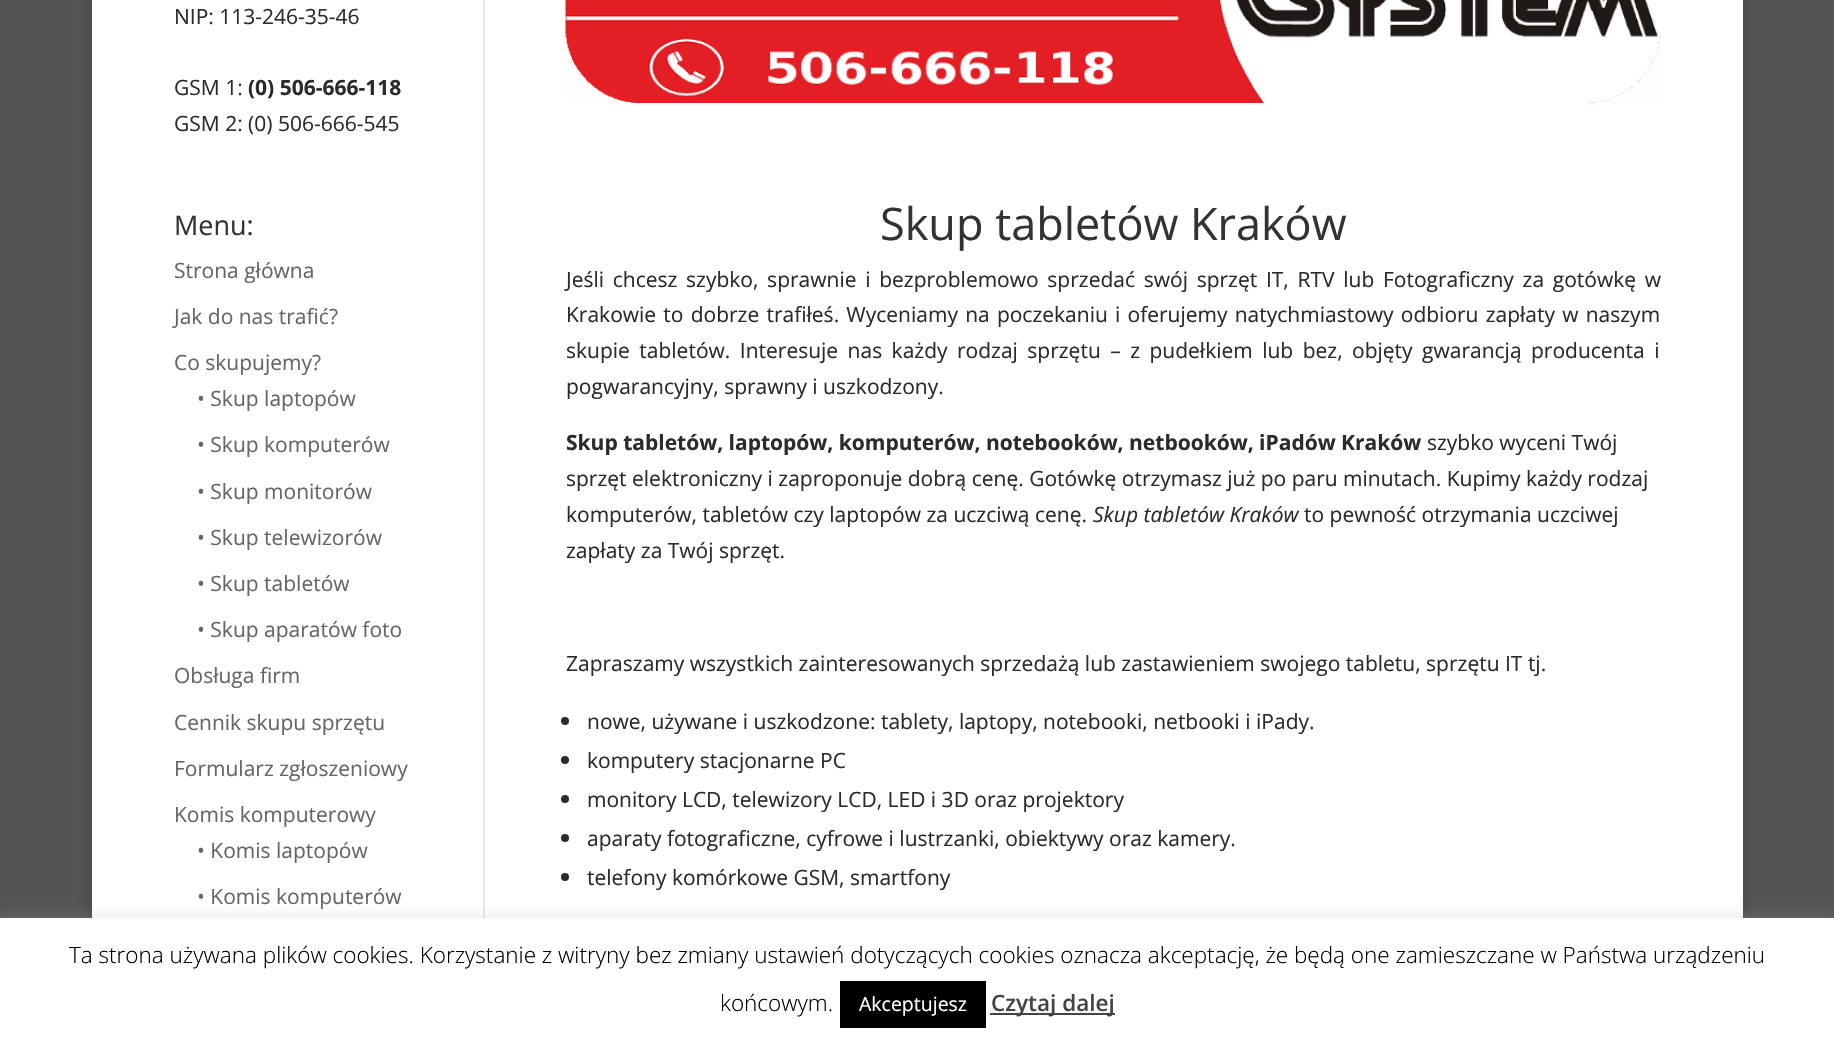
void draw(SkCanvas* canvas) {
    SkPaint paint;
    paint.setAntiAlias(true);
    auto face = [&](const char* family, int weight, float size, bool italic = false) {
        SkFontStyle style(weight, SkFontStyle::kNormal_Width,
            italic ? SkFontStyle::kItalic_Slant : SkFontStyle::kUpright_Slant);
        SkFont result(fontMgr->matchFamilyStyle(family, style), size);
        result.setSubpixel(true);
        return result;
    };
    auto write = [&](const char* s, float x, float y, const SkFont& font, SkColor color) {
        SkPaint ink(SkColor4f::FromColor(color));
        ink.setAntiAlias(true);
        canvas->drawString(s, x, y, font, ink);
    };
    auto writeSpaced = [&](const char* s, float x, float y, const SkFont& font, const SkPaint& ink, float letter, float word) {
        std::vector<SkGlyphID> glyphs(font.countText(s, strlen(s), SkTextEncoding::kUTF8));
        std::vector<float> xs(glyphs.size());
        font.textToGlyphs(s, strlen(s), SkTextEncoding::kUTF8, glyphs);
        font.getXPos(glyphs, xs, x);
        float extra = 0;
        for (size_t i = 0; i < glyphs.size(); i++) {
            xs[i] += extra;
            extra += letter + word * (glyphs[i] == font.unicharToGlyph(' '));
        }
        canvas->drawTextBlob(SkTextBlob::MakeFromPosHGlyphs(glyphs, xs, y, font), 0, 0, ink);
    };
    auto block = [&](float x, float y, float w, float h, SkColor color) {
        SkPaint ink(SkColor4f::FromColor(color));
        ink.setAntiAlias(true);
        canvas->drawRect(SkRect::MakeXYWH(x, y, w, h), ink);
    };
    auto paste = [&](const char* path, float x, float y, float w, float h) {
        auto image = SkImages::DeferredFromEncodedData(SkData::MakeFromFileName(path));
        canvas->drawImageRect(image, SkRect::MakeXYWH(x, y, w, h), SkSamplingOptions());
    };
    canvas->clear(SkColorSetRGB(84, 84, 84));
    paint.setColor(SkColorSetARGB(51, 0, 0, 0));
    paint.setMaskFilter(SkMaskFilter::MakeBlur(kNormal_SkBlurStyle, 7.5f));
    canvas->drawRect(SkRect::MakeXYWH(92, -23, 1651, 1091), paint);
    paint.setMaskFilter(nullptr);
    block(92, 0, 1651, 918, SK_ColorWHITE);
    block(483, 0, 2, 918, SkColorSetRGB(230, 230, 230));
    auto kFont1 = face("Open Sans", 400, 21);
    write("NIP: 113-246-35-46", 174, 24, kFont1, SkColorSetRGB(43, 43, 43));
    write("GSM 1:", 174, 95, kFont1, SkColorSetRGB(43, 43, 43));
    auto kFont2 = face("Open Sans", 700, 21);
    write("(0) 506-666-118", 248, 95, kFont2, SkColorSetRGB(43, 43, 43));
    write("GSM 2: (0) 506-666-545", 174, 131, kFont1, SkColorSetRGB(43, 43, 43));
    auto kFont3 = face("Open Sans", 400, 27);
    write("Menu:", 174, 235, kFont3, SkColorSetRGB(51, 51, 51));
    write("Strona główna", 174, 278, kFont1, SkColorSetRGB(102, 102, 102));
    write("Jak do nas trafić?", 174, 324, kFont1, SkColorSetRGB(102, 102, 102));
    write("Co skupujemy?", 174, 370, kFont1, SkColorSetRGB(102, 102, 102));
    write("• Skup laptopów", 197, 406, kFont1, SkColorSetRGB(102, 102, 102));
    write("• Skup komputerów", 197, 452, kFont1, SkColorSetRGB(102, 102, 102));
    write("• Skup monitorów", 197, 499, kFont1, SkColorSetRGB(102, 102, 102));
    write("• Skup telewizorów", 197, 545, kFont1, SkColorSetRGB(102, 102, 102));
    write("• Skup tabletów", 197, 591, kFont1, SkColorSetRGB(102, 102, 102));
    write("• Skup aparatów foto", 197, 637, kFont1, SkColorSetRGB(102, 102, 102));
    write("Obsługa firm", 174, 683, kFont1, SkColorSetRGB(102, 102, 102));
    write("Cennik skupu sprzętu", 174, 730, kFont1, SkColorSetRGB(102, 102, 102));
    write("Formularz zgłoszeniowy", 174, 776, kFont1, SkColorSetRGB(102, 102, 102));
    write("Komis komputerowy", 174, 822, kFont1, SkColorSetRGB(102, 102, 102));
    write("• Komis laptopów", 197, 858, kFont1, SkColorSetRGB(102, 102, 102));
    write("• Komis komputerów", 197, 904, kFont1, SkColorSetRGB(102, 102, 102));
    paste("pic1.png", 565, 0, 1096, 103);
    auto kFont4 = face("Open Sans", 400, 45);
    write("Skup tabletów Kraków", 880, 240, kFont4, SkColorSetRGB(51, 51, 51));
    paint.setColor(SkColorSetRGB(43, 43, 43));
    writeSpaced("Jeśli chcesz szybko, sprawnie i bezproblemowo sprzedać swój sprzęt IT, RTV lub Fotograficzny za gotówkę w", 566, 287, kFont1, paint, 0, 3.25f);
    writeSpaced("Krakowie to dobrze trafiłeś. Wyceniamy na poczekaniu i oferujemy natychmiastowy odbioru zapłaty w naszym", 566, 322, kFont1, paint, 0, 1.75f);
    writeSpaced("skupie tabletów. Interesuje nas każdy rodzaj sprzętu – z pudełkiem lub bez, objęty gwarancją producenta i", 566, 358, kFont1, paint, 0, 4);
    write("pogwarancyjny, sprawny i uszkodzony.", 566, 394, kFont1, SkColorSetRGB(43, 43, 43));
    write("Skup tabletów, laptopów, komputerów, notebooków, netbooków, iPadów Kraków", 566, 450, kFont2, SkColorSetRGB(43, 43, 43));
    write("szybko wyceni Twój", 1427, 450, kFont1, SkColorSetRGB(43, 43, 43));
    write("sprzęt elektroniczny i zaproponuje dobrą cenę. Gotówkę otrzymasz już po paru minutach. Kupimy każdy rodzaj", 566, 486, kFont1, SkColorSetRGB(43, 43, 43));
    write("komputerów, tabletów czy laptopów za uczciwą cenę.", 566, 522, kFont1, SkColorSetRGB(43, 43, 43));
    auto kFont5 = face("Open Sans", 400, 21, true);
    write("Skup tabletów Kraków", 1093, 522, kFont5, SkColorSetRGB(43, 43, 43));
    write("to pewność otrzymania uczciwej", 1304, 522, kFont1, SkColorSetRGB(43, 43, 43));
    write("zapłaty za Twój sprzęt.", 566, 558, kFont1, SkColorSetRGB(43, 43, 43));
    write("Zapraszamy wszystkich zainteresowanych sprzedażą lub zastawieniem swojego tabletu, sprzętu IT tj.", 566, 671, kFont1, SkColorSetRGB(43, 43, 43));
    canvas->drawCircle(565, 721, 4, paint);
    write("nowe, używane i uszkodzone: tablety, laptopy, notebooki, netbooki i iPady.", 587, 729, kFont1, SkColorSetRGB(43, 43, 43));
    canvas->drawCircle(565, 760, 4, paint);
    write("komputery stacjonarne PC", 587, 768, kFont1, SkColorSetRGB(43, 43, 43));
    canvas->drawCircle(565, 799, 4, paint);
    write("monitory LCD, telewizory LCD, LED i 3D oraz projektory", 587, 807, kFont1, SkColorSetRGB(43, 43, 43));
    canvas->drawCircle(565, 838, 4, paint);
    write("aparaty fotograficzne, cyfrowe i lustrzanki, obiektywy oraz kamery.", 587, 846, kFont1, SkColorSetRGB(43, 43, 43));
    canvas->drawCircle(565, 877, 4, paint);
    write("telefony komórkowe GSM, smartfony", 587, 885, kFont1, SkColorSetRGB(43, 43, 43));
    paint.setColor(SkColorSetARGB(77, 172, 171, 171));
    paint.setMaskFilter(SkMaskFilter::MakeBlur(kNormal_SkBlurStyle, 7.5f));
    canvas->drawRect(SkRect::MakeXYWH(0, 917, 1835, 127), paint);
    paint.setMaskFilter(nullptr);
    block(0, 918, 1834, 127, SK_ColorWHITE);
    auto kFont6 = face("Open Sans", 300, 22.5f);
    write("Ta strona używana plików cookies. Korzystanie z witryny bez zmiany ustawień dotyczących cookies oznacza akceptację, że będą one zamieszczane w Państwa urządzeniu", 69, 963, kFont6, SK_ColorBLACK);
    write("końcowym.", 720, 1011, kFont6, SK_ColorBLACK);
    block(840, 981, 146, 47, SK_ColorBLACK);
    auto kFont7 = face("Open Sans", 400, 19.5f);
    write("Akceptujesz", 859, 1011, kFont7, SK_ColorWHITE);
    block(990, 1013, 125, 2, SkColorSetRGB(68, 68, 68));
    auto kFont8 = face("Open Sans", 600, 22.5f);
    write("Czytaj dalej", 991, 1011, kFont8, SkColorSetRGB(68, 68, 68));
}
